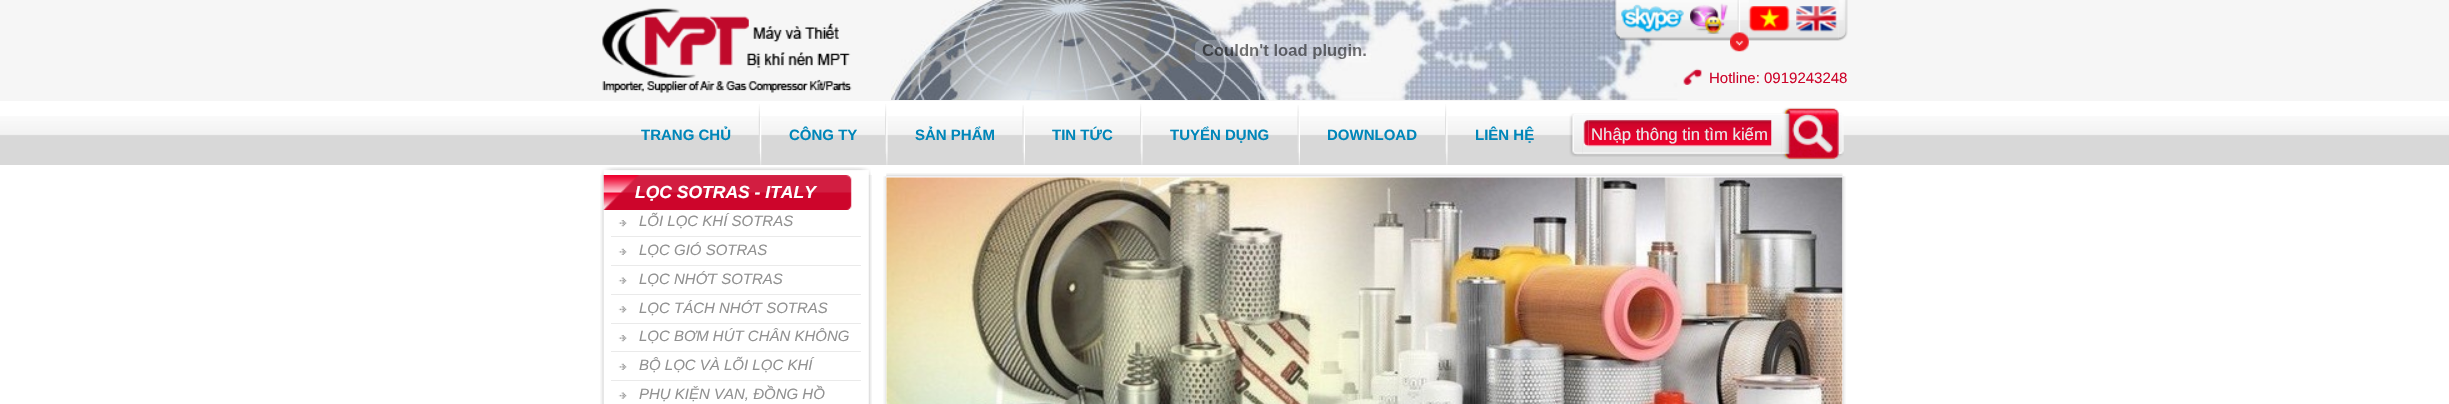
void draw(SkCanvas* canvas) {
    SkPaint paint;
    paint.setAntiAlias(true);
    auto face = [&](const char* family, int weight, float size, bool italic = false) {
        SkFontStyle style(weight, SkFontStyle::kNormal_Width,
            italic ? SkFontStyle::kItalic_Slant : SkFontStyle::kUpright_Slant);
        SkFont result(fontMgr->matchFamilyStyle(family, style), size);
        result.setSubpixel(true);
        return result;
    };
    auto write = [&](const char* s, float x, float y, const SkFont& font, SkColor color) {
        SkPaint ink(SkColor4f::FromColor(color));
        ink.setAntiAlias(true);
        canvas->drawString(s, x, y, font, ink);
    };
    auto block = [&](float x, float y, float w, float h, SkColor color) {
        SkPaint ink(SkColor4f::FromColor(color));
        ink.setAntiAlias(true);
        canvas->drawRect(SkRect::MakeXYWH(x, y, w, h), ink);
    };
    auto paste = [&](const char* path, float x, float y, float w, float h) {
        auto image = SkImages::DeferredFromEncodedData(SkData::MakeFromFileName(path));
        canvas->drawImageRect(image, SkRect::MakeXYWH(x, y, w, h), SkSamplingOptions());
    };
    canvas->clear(SK_ColorWHITE);
    block(0, 0, 2449, 101, SkColorSetRGB(246, 246, 246));
    paste("pic1.png", 602, 8, 250, 85);
    paste("pic2.png", 891, 0, 787, 100);
    paste("pic3.png", 1195, 40, 176, 23);
    paste("pic4.png", 1614, 0, 6, 40);
    paste("pic5.png", 1620, 0, 110, 41);
    paste("pic6.png", 1621, 4, 63, 29);
    paste("pic7.png", 1690, 3, 38, 31);
    paste("pic8.png", 1730, 0, 19, 52);
    paste("pic9.png", 1748, 20, 91, 21);
    paste("pic10.png", 1748, 6, 42, 26);
    paste("pic11.png", 1796, 6, 41, 26);
    paste("pic12.png", 1838, 0, 10, 41);
    paste("pic13.png", 1683, 68, 19, 17);
    auto kFont1 = face("Liberation Sans", 400, 15);
    write("Hotline: 0919243248", 1709, 83, kFont1, SkColorSetRGB(205, 5, 43));
    paste("pic14.png", 0, 116, 2449, 49);
    auto kFont2 = face("Liberation Sans", 700, 15);
    write("TRANG CHỦ", 641, 140, kFont2, SkColorSetRGB(0, 134, 185));
    paste("pic15.png", 758, 104, 2, 50);
    paste("pic16.png", 760, 117, 2, 48);
    write("CÔNG TY", 789, 140, kFont2, SkColorSetRGB(0, 134, 185));
    paste("pic17.png", 885, 104, 2, 50);
    paste("pic18.png", 886, 116, 2, 49);
    write("SẢN PHẨM", 915, 140, kFont2, SkColorSetRGB(0, 134, 185));
    paste("pic19.png", 1022, 105, 2, 48);
    paste("pic20.png", 1023, 113, 2, 52);
    write("TIN TỨC", 1052, 140, kFont2, SkColorSetRGB(0, 134, 185));
    paste("pic17.png", 1140, 104, 2, 50);
    paste("pic18.png", 1141, 116, 2, 49);
    write("TUYỂN DỤNG", 1170, 140, kFont2, SkColorSetRGB(0, 134, 185));
    paste("pic19.png", 1297, 105, 2, 48);
    paste("pic20.png", 1298, 113, 2, 52);
    write("DOWNLOAD", 1327, 140, kFont2, SkColorSetRGB(0, 134, 185));
    paste("pic17.png", 1445, 104, 2, 50);
    paste("pic18.png", 1446, 116, 2, 49);
    write("LIÊN HỆ", 1475, 140, kFont2, SkColorSetRGB(0, 134, 185));
    paste("pic21.png", 1569, 113, 14, 44);
    paste("pic22.png", 1582, 113, 200, 44);
    paste("pic23.png", 1582, 119, 7, 28);
    paste("pic24.png", 1588, 119, 184, 28);
    auto kFont3 = face("Liberation Sans", 400, 16.75f);
    write("Nhập thông tin tìm kiếm", 1591, 140, kFont3, SkColorSetRGB(234, 234, 234));
    paste("pic25.png", 1781, 107, 63, 53);
    paste("pic26.png", 601, 167, 270, 8);
    paste("pic27.png", 600, 175, 272, 229);
    paste("pic28.png", 603, 175, 249, 35);
    auto kFont4 = face("Liberation Sans", 700, 17.5f, true);
    write("LỌC SOTRAS - ITALY", 635, 198, kFont4, SK_ColorWHITE);
    paste("pic29.png", 618, 220, 9, 7);
    auto kFont5 = face("Liberation Sans", 400, 15, true);
    write("LÕI LỌC KHÍ SOTRAS", 639, 226, kFont5, SkColorSetRGB(145, 145, 145));
    block(611, 236, 250, 1, SkColorSetRGB(234, 234, 234));
    paste("pic30.png", 618, 248, 9, 7);
    write("LỌC GIÓ SOTRAS", 639, 255, kFont5, SkColorSetRGB(145, 145, 145));
    block(611, 265, 250, 1, SkColorSetRGB(234, 234, 234));
    paste("pic31.png", 618, 277, 9, 7);
    write("LỌC NHỚT SOTRAS", 639, 284, kFont5, SkColorSetRGB(145, 145, 145));
    block(611, 294, 250, 1, SkColorSetRGB(234, 234, 234));
    paste("pic32.png", 618, 306, 9, 7);
    write("LỌC TÁCH NHỚT SOTRAS", 639, 313, kFont5, SkColorSetRGB(145, 145, 145));
    block(611, 323, 250, 1, SkColorSetRGB(234, 234, 234));
    paste("pic29.png", 618, 335, 9, 7);
    write("LỌC BƠM HÚT CHÂN KHÔNG", 639, 341, kFont5, SkColorSetRGB(145, 145, 145));
    block(611, 351, 250, 1, SkColorSetRGB(234, 234, 234));
    paste("pic30.png", 618, 363, 9, 7);
    write("BỘ LỌC VÀ LÕI LỌC KHÍ", 639, 370, kFont5, SkColorSetRGB(145, 145, 145));
    block(611, 380, 250, 1, SkColorSetRGB(234, 234, 234));
    paste("pic31.png", 618, 392, 9, 7);
    write("PHỤ KIỆN VAN, ĐỒNG HỒ", 639, 399, kFont5, SkColorSetRGB(145, 145, 145));
    paste("pic33.png", 886, 173, 957, 3);
    paste("pic34.png", 883, 176, 3, 228);
    paste("pic36.png", 1842, 176, 4, 228);
    block(886, 176, 957, 1, SkColorSetRGB(241, 240, 245));
    paste("pic35.png", 886, 177, 957, 227);
}
